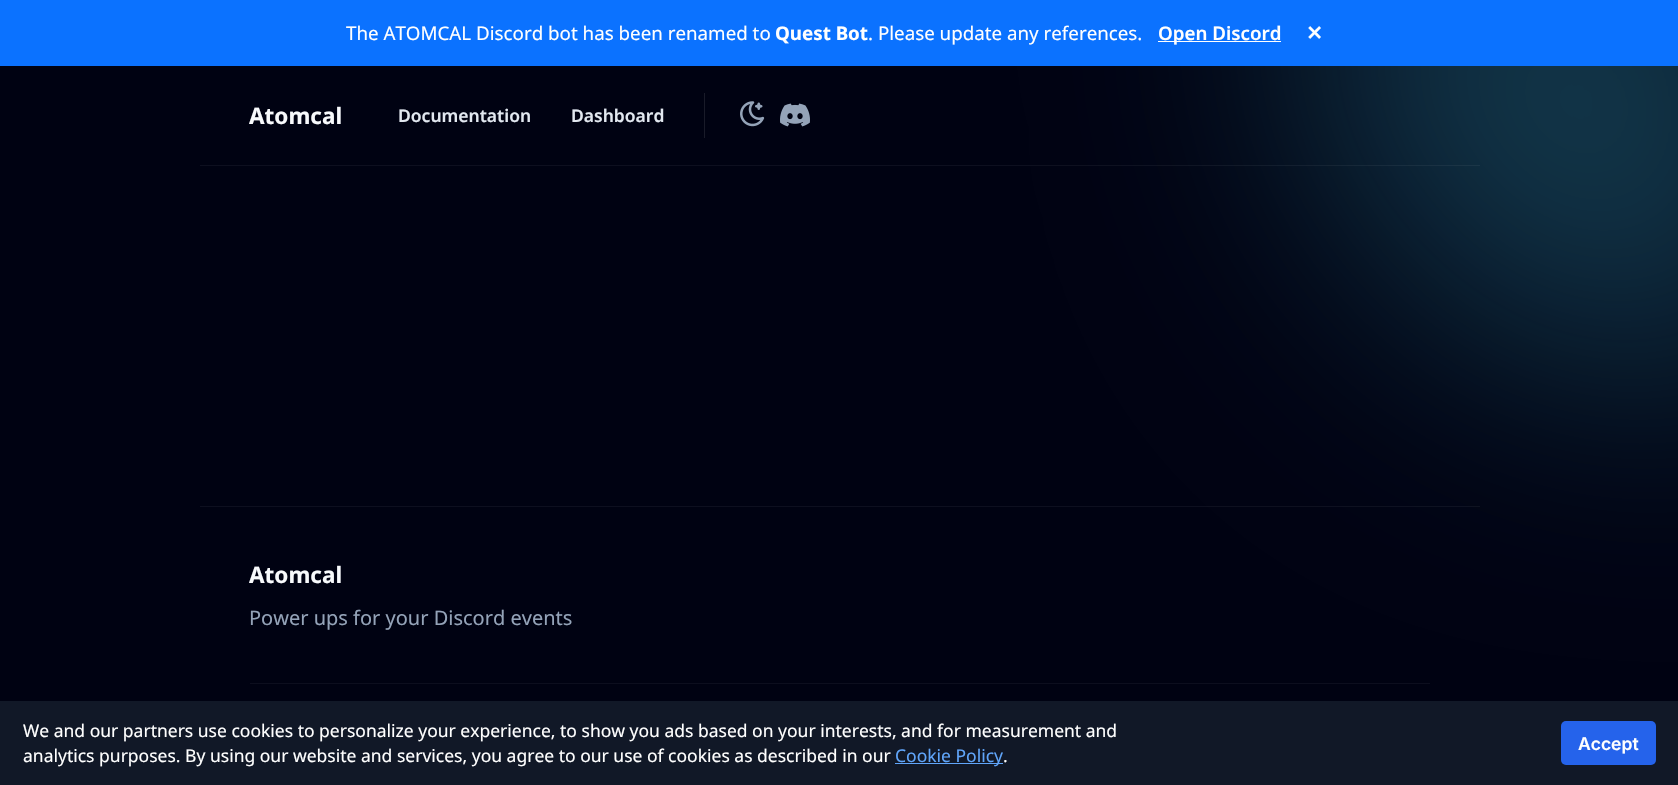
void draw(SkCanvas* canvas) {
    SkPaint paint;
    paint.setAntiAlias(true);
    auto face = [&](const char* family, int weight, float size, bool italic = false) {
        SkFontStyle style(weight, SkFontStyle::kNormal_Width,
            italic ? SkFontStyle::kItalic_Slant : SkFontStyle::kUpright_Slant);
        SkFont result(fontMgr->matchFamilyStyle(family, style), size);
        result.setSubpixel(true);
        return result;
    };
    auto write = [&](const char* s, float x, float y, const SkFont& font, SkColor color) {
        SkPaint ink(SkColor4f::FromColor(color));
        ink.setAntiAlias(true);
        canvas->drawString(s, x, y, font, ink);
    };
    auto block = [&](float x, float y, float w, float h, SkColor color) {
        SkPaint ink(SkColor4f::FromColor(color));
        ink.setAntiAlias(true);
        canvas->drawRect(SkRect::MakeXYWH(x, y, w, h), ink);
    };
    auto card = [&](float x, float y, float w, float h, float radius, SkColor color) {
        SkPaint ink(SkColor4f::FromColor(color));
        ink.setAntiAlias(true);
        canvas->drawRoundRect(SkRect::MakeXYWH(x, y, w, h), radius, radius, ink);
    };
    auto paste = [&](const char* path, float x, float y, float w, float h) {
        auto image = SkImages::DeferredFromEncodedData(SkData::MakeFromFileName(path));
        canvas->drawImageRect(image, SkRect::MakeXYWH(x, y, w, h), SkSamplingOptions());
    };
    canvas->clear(SkColorSetRGB(0, 2, 18));
    paint.setColor(SkColorSetARGB(128, 36, 107, 129));
    paint.setMaskFilter(SkMaskFilter::MakeBlur(kNormal_SkBlurStyle, 125));
    canvas->drawRoundRect(SkRect::MakeXYWH(1304, -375, 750, 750), 375, 375, paint);
    paint.setMaskFilter(nullptr);
    block(0, 0, 1678, 66, SkColorSetRGB(11, 114, 255));
    auto kFont1 = face("Noto Sans", 400, 18.75f);
    write("The ATOMCAL Discord bot has been renamed to", 346, 40, kFont1, SK_ColorWHITE);
    auto kFont2 = face("Noto Sans", 700, 18.75f);
    write("Quest Bot", 775, 40, kFont2, SK_ColorWHITE);
    write(". Please update any references.", 868, 40, kFont1, SK_ColorWHITE);
    block(1158, 41, 123, 1, SK_ColorWHITE);
    auto kFont3 = face("Noto Sans", 600, 18.75f);
    write("Open Discord", 1158, 40, kFont3, SK_ColorWHITE);
    auto kFont4 = face("DejaVu Sans", 700, 20);
    write("✕", 1306, 40, kFont4, SK_ColorWHITE);
    block(200, 165, 1280, 1, SkColorSetARGB(13, 248, 250, 252));
    auto kFont5 = face("Noto Sans", 700, 22.5f);
    write("Atomcal", 249, 124, kFont5, SkColorSetRGB(248, 250, 252));
    auto kFont6 = face("Noto Sans", 600, 17.5f);
    write("Documentation", 398, 122, kFont6, SkColorSetRGB(226, 232, 240));
    write("Dashboard", 571, 122, kFont6, SkColorSetRGB(226, 232, 240));
    block(704, 93, 1, 45, SkColorSetRGB(25, 27, 41));
    paste("pic1.png", 740, 101, 25, 26);
    paste("pic2.png", 780, 103, 30, 24);
    block(200, 506, 1280, 1, SkColorSetARGB(13, 248, 250, 252));
    write("Atomcal", 249, 583, kFont5, SkColorSetRGB(248, 250, 252));
    auto kFont7 = face("Noto Sans", 400, 20);
    write("Power ups for your Discord events", 249, 625, kFont7, SkColorSetRGB(148, 163, 184));
    block(250, 683, 1180, 1, SkColorSetRGB(12, 14, 30));
    block(0, 701, 1678, 84, SkColorSetRGB(17, 24, 39));
    auto kFont8 = face("Noto Sans", 400, 17.5f);
    write("We and our partners use cookies to personalize your experience, to show you ads based on your interests, and for measurement and", 23, 737, kFont8, SK_ColorWHITE);
    write("analytics purposes. By using our website and services, you agree to our use of cookies as described in our", 23, 762, kFont8, SK_ColorWHITE);
    block(895, 763, 108, 1, SkColorSetRGB(96, 165, 250));
    write("Cookie Policy", 895, 762, kFont8, SkColorSetRGB(96, 165, 250));
    write(".", 1003, 762, kFont8, SK_ColorWHITE);
    card(1561, 721, 95, 44, 5, SkColorSetRGB(37, 99, 235));
    auto kFont9 = face("Inter", 600, 17.5f);
    write("Accept", 1578, 750, kFont9, SK_ColorWHITE);
}
